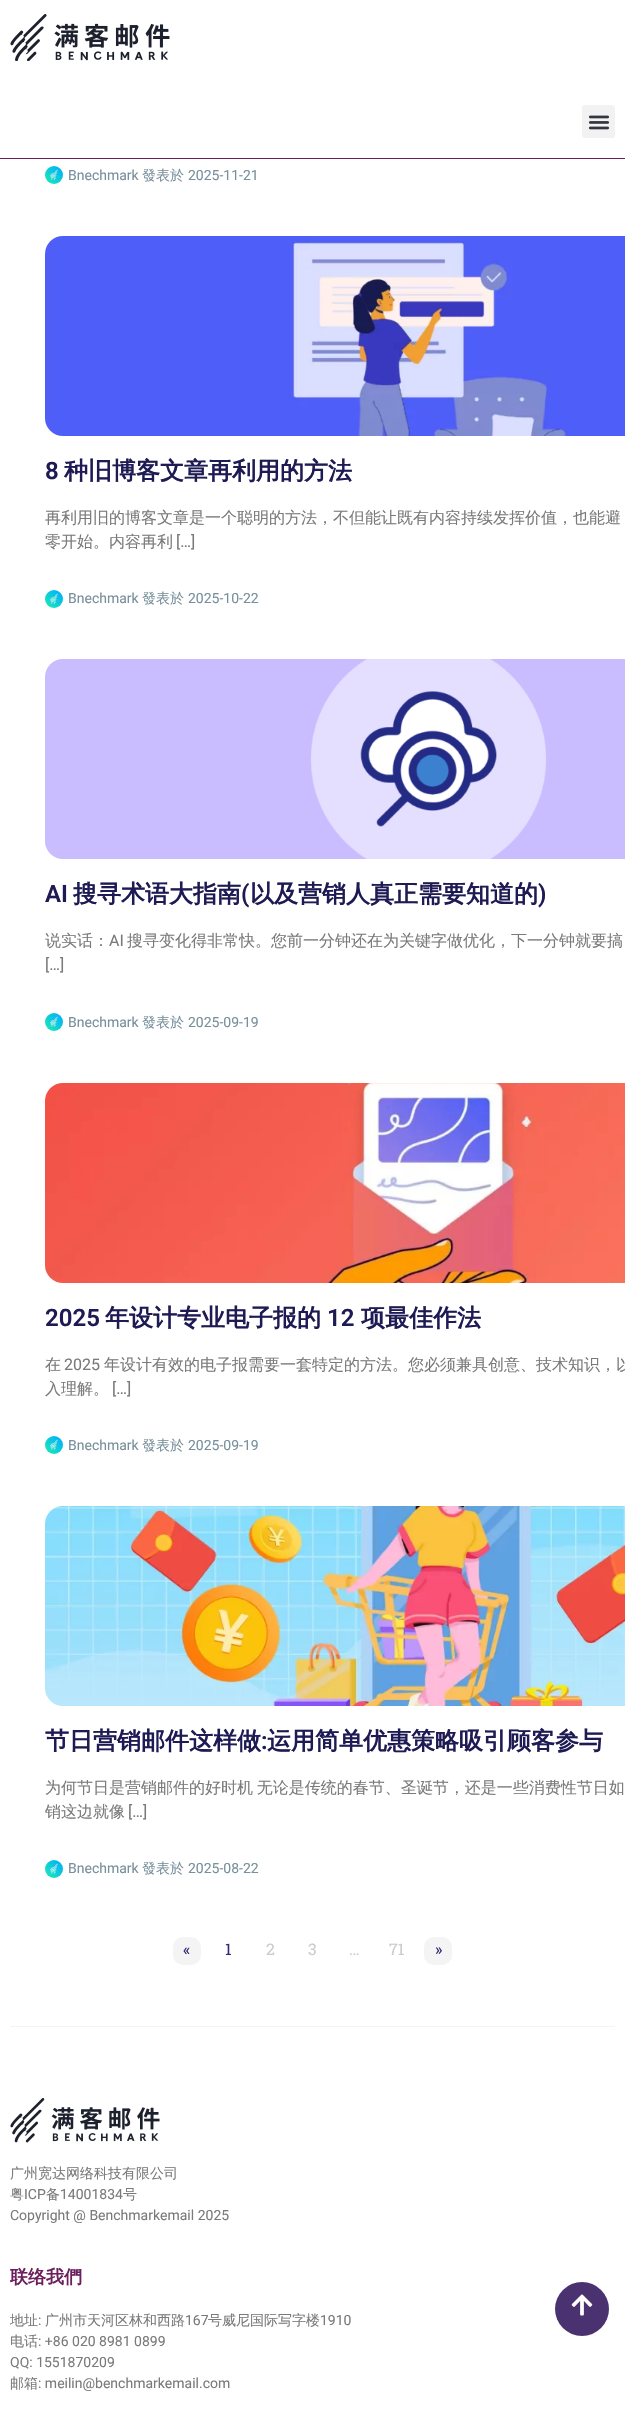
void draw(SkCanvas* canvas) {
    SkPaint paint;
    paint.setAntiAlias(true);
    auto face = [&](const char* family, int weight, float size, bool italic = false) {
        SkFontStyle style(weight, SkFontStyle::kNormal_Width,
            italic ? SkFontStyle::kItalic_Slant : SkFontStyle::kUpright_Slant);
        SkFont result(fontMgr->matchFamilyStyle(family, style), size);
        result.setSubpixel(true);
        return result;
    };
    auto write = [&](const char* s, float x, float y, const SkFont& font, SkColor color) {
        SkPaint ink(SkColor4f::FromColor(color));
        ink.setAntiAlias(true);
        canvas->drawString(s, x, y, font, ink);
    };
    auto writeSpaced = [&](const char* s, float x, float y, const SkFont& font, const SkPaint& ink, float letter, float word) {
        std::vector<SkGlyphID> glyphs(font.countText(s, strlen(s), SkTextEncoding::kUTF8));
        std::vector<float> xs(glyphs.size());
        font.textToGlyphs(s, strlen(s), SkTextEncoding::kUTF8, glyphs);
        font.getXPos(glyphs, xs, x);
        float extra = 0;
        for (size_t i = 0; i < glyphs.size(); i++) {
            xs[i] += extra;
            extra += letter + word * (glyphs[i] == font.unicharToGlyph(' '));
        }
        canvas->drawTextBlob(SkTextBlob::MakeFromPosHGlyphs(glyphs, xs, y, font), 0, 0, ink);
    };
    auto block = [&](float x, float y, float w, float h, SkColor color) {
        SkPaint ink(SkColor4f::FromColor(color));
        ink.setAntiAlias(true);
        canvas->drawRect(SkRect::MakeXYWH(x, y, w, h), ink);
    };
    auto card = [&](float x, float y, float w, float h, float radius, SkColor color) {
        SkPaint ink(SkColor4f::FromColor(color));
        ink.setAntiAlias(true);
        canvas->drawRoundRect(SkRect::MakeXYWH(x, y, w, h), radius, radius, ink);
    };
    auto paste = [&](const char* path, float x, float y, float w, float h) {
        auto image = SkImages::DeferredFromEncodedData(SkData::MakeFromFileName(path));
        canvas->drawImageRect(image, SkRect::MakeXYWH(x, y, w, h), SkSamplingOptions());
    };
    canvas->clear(SK_ColorWHITE);
    block(0, 158, 625, 1, SkColorSetRGB(108, 31, 92));
    paste("pic1.png", 10, 14, 160, 47);
    card(582, 105, 33, 33, 3, SkColorSetRGB(242, 242, 242));
    paste("pic2.png", 588, 115, 22, 15);
    paste("pic3.png", 45, 166, 18, 18);
    auto kFont1 = face("Roboto", 400, 14);
    write("Bnechmark", 68, 180, kFont1, SkColorSetRGB(120, 144, 156));
    auto kFont2 = face("WenQuanYi Zen Hei", 500, 14);
    write("發表於", 142, 180, kFont2, SkColorSetRGB(120, 144, 156));
    write("2025-11-21", 188, 180, kFont1, SkColorSetRGB(120, 144, 156));
    paste("pic4.png", 45, 236, 580, 200);
    auto kFont3 = face("Roboto", 600, 24);
    write("8", 45, 479, kFont3, SkColorSetRGB(30, 27, 84));
    auto kFont4 = face("WenQuanYi Zen Hei", 700, 24);
    write("种旧博客文章再利用的方法", 64, 479, kFont4, SkColorSetRGB(30, 27, 84));
    auto kFont5 = face("WenQuanYi Zen Hei", 500, 16);
    write("再利用旧的博客文章是一个聪明的方法，不但能让既有内容持续发挥价值，也能避", 45, 523, kFont5, SkColorSetRGB(122, 122, 122));
    write("零开始。内容再利", 45, 547, kFont5, SkColorSetRGB(122, 122, 122));
    auto kFont6 = face("Roboto", 400, 16);
    write("[…]", 176, 547, kFont6, SkColorSetRGB(122, 122, 122));
    paste("pic3.png", 45, 590, 18, 18);
    write("Bnechmark", 68, 603, kFont1, SkColorSetRGB(120, 144, 156));
    write("發表於", 142, 603, kFont2, SkColorSetRGB(120, 144, 156));
    write("2025-10-22", 188, 603, kFont1, SkColorSetRGB(120, 144, 156));
    paste("pic5.png", 45, 659, 580, 200);
    write("AI", 45, 902, kFont3, SkColorSetRGB(30, 27, 84));
    write("搜寻术语大指南", 73, 902, kFont4, SkColorSetRGB(30, 27, 84));
    write("(", 241, 902, kFont3, SkColorSetRGB(30, 27, 84));
    write("以及营销人真正需要知道的", 250, 902, kFont4, SkColorSetRGB(30, 27, 84));
    write(")", 538, 902, kFont3, SkColorSetRGB(30, 27, 84));
    write("说实话：", 45, 946, kFont5, SkColorSetRGB(122, 122, 122));
    write("AI", 109, 946, kFont6, SkColorSetRGB(122, 122, 122));
    write("搜寻变化得非常快。您前一分钟还在为关键字做优化，下一分钟就要搞", 127, 946, kFont5, SkColorSetRGB(122, 122, 122));
    write("[…]", 45, 970, kFont6, SkColorSetRGB(122, 122, 122));
    paste("pic3.png", 45, 1013, 18, 18);
    write("Bnechmark", 68, 1027, kFont1, SkColorSetRGB(120, 144, 156));
    write("發表於", 142, 1027, kFont2, SkColorSetRGB(120, 144, 156));
    write("2025-09-19", 188, 1027, kFont1, SkColorSetRGB(120, 144, 156));
    paste("pic6.png", 45, 1083, 580, 200);
    write("2025", 45, 1326, kFont3, SkColorSetRGB(30, 27, 84));
    write("年设计专业电子报的", 105, 1326, kFont4, SkColorSetRGB(30, 27, 84));
    write("12", 327, 1326, kFont3, SkColorSetRGB(30, 27, 84));
    write("项最佳作法", 361, 1326, kFont4, SkColorSetRGB(30, 27, 84));
    write("在", 45, 1370, kFont5, SkColorSetRGB(122, 122, 122));
    write("2025", 64, 1370, kFont6, SkColorSetRGB(122, 122, 122));
    write("年设计有效的电子报需要一套特定的方法。您必须兼具创意、技术知识，以", 104, 1370, kFont5, SkColorSetRGB(122, 122, 122));
    write("入理解。", 45, 1394, kFont5, SkColorSetRGB(122, 122, 122));
    write("[…]", 112, 1394, kFont6, SkColorSetRGB(122, 122, 122));
    paste("pic3.png", 45, 1436, 18, 18);
    write("Bnechmark", 68, 1450, kFont1, SkColorSetRGB(120, 144, 156));
    write("發表於", 142, 1450, kFont2, SkColorSetRGB(120, 144, 156));
    write("2025-09-19", 188, 1450, kFont1, SkColorSetRGB(120, 144, 156));
    paste("pic7.png", 45, 1506, 580, 200);
    write("节日营销邮件这样做", 45, 1749, kFont4, SkColorSetRGB(30, 27, 84));
    write(":", 261, 1749, kFont3, SkColorSetRGB(30, 27, 84));
    write("运用简单优惠策略吸引顾客参与", 267, 1749, kFont4, SkColorSetRGB(30, 27, 84));
    paint.setColor(SkColorSetRGB(122, 122, 122));
    writeSpaced("为何节日是营销邮件的好时机 无论是传统的春节、圣诞节，还是一些消费性节日如", 45, 1793, kFont5, paint, 0, -1);
    write("销这边就像", 45, 1817, kFont5, SkColorSetRGB(122, 122, 122));
    write("[…]", 128, 1817, kFont6, SkColorSetRGB(122, 122, 122));
    paste("pic3.png", 45, 1860, 18, 18);
    write("Bnechmark", 68, 1873, kFont1, SkColorSetRGB(120, 144, 156));
    write("發表於", 142, 1873, kFont2, SkColorSetRGB(120, 144, 156));
    write("2025-08-22", 188, 1873, kFont1, SkColorSetRGB(120, 144, 156));
    card(173, 1937, 28, 28, 10, SkColorSetRGB(244, 244, 244));
    auto kFont7 = face("Roboto Slab", 400, 16);
    write("«", 183, 1955, kFont7, SkColorSetRGB(56, 40, 117));
    write("1", 225, 1955, kFont7, SkColorSetRGB(56, 40, 117));
    write("2", 266, 1955, kFont7, SkColorSetRGB(204, 204, 204));
    write("3", 308, 1955, kFont7, SkColorSetRGB(204, 204, 204));
    write("…", 349, 1955, kFont7, SkColorSetRGB(204, 204, 204));
    write("71", 389, 1955, kFont7, SkColorSetRGB(204, 204, 204));
    card(424, 1937, 28, 28, 10, SkColorSetRGB(244, 244, 244));
    write("»", 435, 1955, kFont7, SkColorSetRGB(56, 40, 117));
    block(10, 2026, 605, 1, SkColorSetRGB(244, 244, 244));
    paste("pic8.png", 10, 2098, 150, 45);
    write("广州宽达网络科技有限公司", 10, 2178, kFont2, SkColorSetRGB(122, 122, 122));
    write("粤", 10, 2199, kFont2, SkColorSetRGB(122, 122, 122));
    write("ICP", 24, 2199, kFont1, SkColorSetRGB(122, 122, 122));
    write("备", 46, 2199, kFont2, SkColorSetRGB(122, 122, 122));
    write("14001834", 60, 2199, kFont1, SkColorSetRGB(122, 122, 122));
    write("号", 123, 2199, kFont2, SkColorSetRGB(122, 122, 122));
    write("Copyright @ Benchmarkemail 2025", 10, 2220, kFont1, SkColorSetRGB(122, 122, 122));
    auto kFont8 = face("WenQuanYi Zen Hei", 700, 18);
    write("联络我們", 10, 2283, kFont8, SkColorSetRGB(108, 31, 92));
    write("地址", 10, 2325, kFont2, SkColorSetRGB(122, 122, 122));
    write(":", 38, 2325, kFont1, SkColorSetRGB(122, 122, 122));
    write("广州市天河区林和西路", 45, 2325, kFont2, SkColorSetRGB(122, 122, 122));
    write("167", 185, 2325, kFont1, SkColorSetRGB(122, 122, 122));
    write("号威尼国际写字楼", 208, 2325, kFont2, SkColorSetRGB(122, 122, 122));
    write("1910", 320, 2325, kFont1, SkColorSetRGB(122, 122, 122));
    write("电话", 10, 2346, kFont2, SkColorSetRGB(122, 122, 122));
    write(": +86 020 8981 0899", 38, 2346, kFont1, SkColorSetRGB(122, 122, 122));
    write("QQ: 1551870209", 10, 2367, kFont1, SkColorSetRGB(122, 122, 122));
    write("邮箱", 10, 2388, kFont2, SkColorSetRGB(122, 122, 122));
    write(": meilin@benchmarkemail.com", 38, 2388, kFont1, SkColorSetRGB(122, 122, 122));
    paint.setColor(SkColorSetRGB(74, 50, 113));
    canvas->drawCircle(582, 2309, 27, paint);
    paste("pic9.png", 571, 2294, 22, 22);
}
